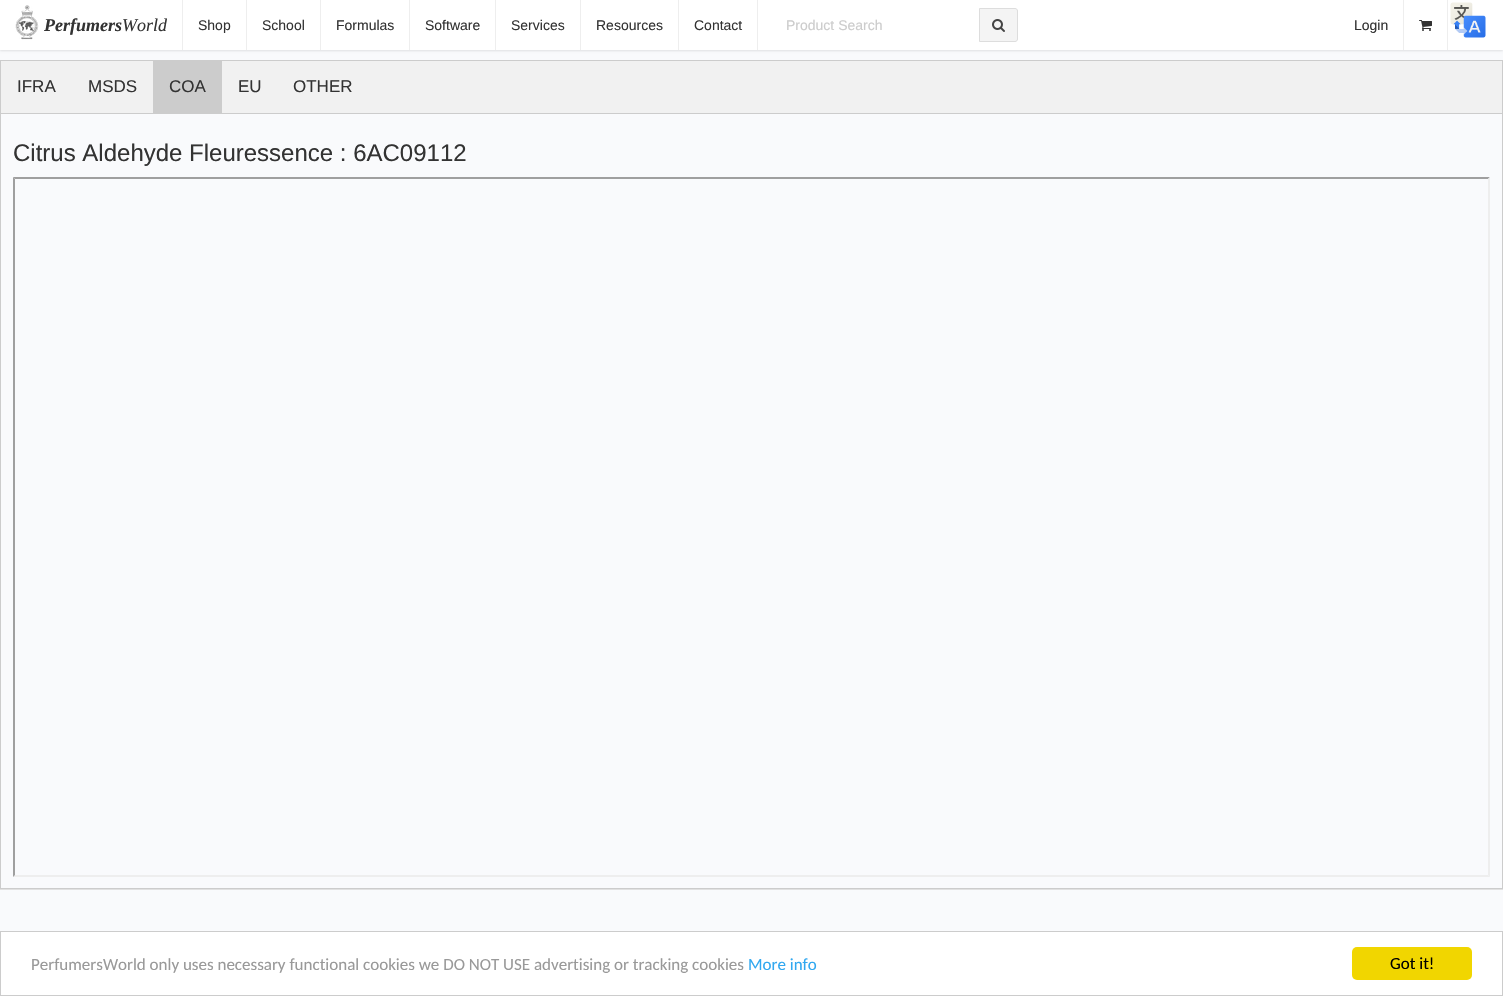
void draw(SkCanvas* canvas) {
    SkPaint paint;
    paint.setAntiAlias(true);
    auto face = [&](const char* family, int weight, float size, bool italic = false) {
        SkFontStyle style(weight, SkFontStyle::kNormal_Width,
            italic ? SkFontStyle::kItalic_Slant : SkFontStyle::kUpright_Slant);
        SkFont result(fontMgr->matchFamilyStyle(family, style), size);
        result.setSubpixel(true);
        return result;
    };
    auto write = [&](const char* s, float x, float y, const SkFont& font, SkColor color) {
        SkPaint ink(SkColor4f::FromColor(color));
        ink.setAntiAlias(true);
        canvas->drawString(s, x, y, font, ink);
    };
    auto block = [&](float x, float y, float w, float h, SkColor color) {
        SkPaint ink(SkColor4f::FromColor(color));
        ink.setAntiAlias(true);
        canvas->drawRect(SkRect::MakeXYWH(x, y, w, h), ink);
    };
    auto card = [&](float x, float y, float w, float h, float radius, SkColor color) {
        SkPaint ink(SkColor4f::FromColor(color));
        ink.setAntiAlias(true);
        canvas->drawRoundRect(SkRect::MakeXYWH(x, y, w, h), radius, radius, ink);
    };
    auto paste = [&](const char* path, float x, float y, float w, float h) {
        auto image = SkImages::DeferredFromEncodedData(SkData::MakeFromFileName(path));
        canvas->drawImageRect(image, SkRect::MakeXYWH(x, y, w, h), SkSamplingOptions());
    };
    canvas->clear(SkColorSetRGB(249, 250, 252));
    paint.setColor(SkColorSetARGB(26, 0, 0, 0));
    paint.setMaskFilter(SkMaskFilter::MakeBlur(kNormal_SkBlurStyle, 1));
    canvas->drawRect(SkRect::MakeXYWH(0, 1, 1503, 50), paint);
    paint.setMaskFilter(nullptr);
    block(0, 0, 1503, 50, SK_ColorWHITE);
    paste("pic1.png", 15, 5, 24, 35);
    block(182, 0, 1, 50, SkColorSetRGB(238, 238, 238));
    auto kFont1 = face("Liberation Serif", 700, 18, true);
    write("Perfumers", 44, 31, kFont1, SkColorSetRGB(51, 51, 51));
    auto kFont2 = face("Liberation Serif", 400, 18, true);
    write("World", 122, 31, kFont2, SkColorSetRGB(51, 51, 51));
    block(246, 0, 1, 50, SkColorSetRGB(238, 238, 238));
    auto kFont3 = face("Liberation Sans", 400, 14);
    write("Shop", 198, 30, kFont3, SkColorSetRGB(51, 51, 51));
    block(320, 0, 1, 50, SkColorSetRGB(238, 238, 238));
    write("School", 262, 30, kFont3, SkColorSetRGB(51, 51, 51));
    block(409, 0, 1, 50, SkColorSetRGB(238, 238, 238));
    write("Formulas", 336, 30, kFont3, SkColorSetRGB(51, 51, 51));
    block(495, 0, 1, 50, SkColorSetRGB(238, 238, 238));
    write("Software", 425, 30, kFont3, SkColorSetRGB(51, 51, 51));
    block(580, 0, 1, 50, SkColorSetRGB(238, 238, 238));
    write("Services", 511, 30, kFont3, SkColorSetRGB(51, 51, 51));
    block(678, 0, 1, 50, SkColorSetRGB(238, 238, 238));
    write("Resources", 596, 30, kFont3, SkColorSetRGB(51, 51, 51));
    block(757, 0, 1, 50, SkColorSetRGB(238, 238, 238));
    write("Contact", 694, 30, kFont3, SkColorSetRGB(51, 51, 51));
    write("Product Search", 786, 30, kFont3, SkColorSetRGB(204, 204, 204));
    paint.setColor(SkColorSetRGB(244, 244, 244));
    canvas->drawPath(SkPathBuilder().moveTo(979.5f, 8.5f).lineTo(1015, 8.5f).cubicTo(1016.5f, 8.5f, 1017.5f, 9.5f, 1017.5f, 11).lineTo(1017.5f, 39).cubicTo(1017.5f, 40.5f, 1016.5f, 41.5f, 1015, 41.5f).lineTo(979.5f, 41.5f).close().detach(), paint);
    paint.setStyle(SkPaint::kStroke_Style);
    paint.setStrokeWidth(1);
    paint.setColor(SkColorSetRGB(221, 221, 221));
    canvas->drawPath(SkPathBuilder().moveTo(979.5f, 8.5f).lineTo(1015, 8.5f).cubicTo(1016.5f, 8.5f, 1017.5f, 9.5f, 1017.5f, 11).lineTo(1017.5f, 39).cubicTo(1017.5f, 40.5f, 1016.5f, 41.5f, 1015, 41.5f).lineTo(979.5f, 41.5f).close().detach(), paint);
    paste("pic2.png", 992, 19, 13, 13);
    block(1403, 0, 1, 50, SkColorSetRGB(238, 238, 238));
    write("Login", 1354, 30, kFont3, SkColorSetRGB(51, 51, 51));
    block(1447, 0, 1, 50, SkColorSetRGB(238, 238, 238));
    paste("pic3.png", 1419, 20, 13, 11);
    paste("pic4.png", 1450, 2, 36, 36);
    paint.setStyle(SkPaint::kFill_Style);
    paint.setColor(SkColorSetRGB(241, 241, 241));
    canvas->drawRect(SkRect::MakeXYWH(0.5f, 60.5f, 1502, 53), paint);
    paint.setStyle(SkPaint::kStroke_Style);
    paint.setColor(SkColorSetRGB(204, 204, 204));
    canvas->drawRect(SkRect::MakeXYWH(0.5f, 60.5f, 1502, 53), paint);
    auto kFont4 = face("Liberation Sans", 400, 17);
    write("IFRA", 17, 92, kFont4, SkColorSetRGB(51, 51, 51));
    write("MSDS", 88, 92, kFont4, SkColorSetRGB(51, 51, 51));
    block(153, 61, 69, 52, SkColorSetRGB(204, 204, 204));
    write("COA", 169, 92, kFont4, SkColorSetRGB(51, 51, 51));
    write("EU", 238, 92, kFont4, SkColorSetRGB(51, 51, 51));
    write("OTHER", 293, 92, kFont4, SkColorSetRGB(51, 51, 51));
    block(1502, 114, 1, 775, SkColorSetRGB(204, 204, 204));
    block(0, 888, 1503, 1, SkColorSetRGB(204, 204, 204));
    block(0, 114, 1, 775, SkColorSetRGB(204, 204, 204));
    auto kFont5 = face("Liberation Sans", 400, 24);
    write("Citrus Aldehyde Fleuressence : 6AC09112", 13, 161, kFont5, SkColorSetRGB(51, 51, 51));
    paint.setStyle(SkPaint::kFill_Style);
    paint.setColor(SkColorSetRGB(159, 159, 159));
    canvas->drawPath(SkPathBuilder().moveTo(13, 177).lineTo(1490, 177).lineTo(1488, 179).lineTo(15, 179).close().detach(), paint);
    paint.setColor(SkColorSetRGB(238, 238, 238));
    canvas->drawPath(SkPathBuilder().moveTo(1490, 177).lineTo(1490, 877).lineTo(1488, 875).lineTo(1488, 179).close().detach(), paint);
    canvas->drawPath(SkPathBuilder().moveTo(1490, 877).lineTo(13, 877).lineTo(15, 875).lineTo(1488, 875).close().detach(), paint);
    paint.setColor(SkColorSetRGB(159, 159, 159));
    canvas->drawPath(SkPathBuilder().moveTo(13, 877).lineTo(13, 177).lineTo(15, 179).lineTo(15, 875).close().detach(), paint);
    block(0, 889, 1503, 1, SkColorSetRGB(225, 225, 225));
    paint.setColor(SK_ColorWHITE);
    canvas->drawRect(SkRect::MakeXYWH(0.5f, 931.5f, 1502, 64), paint);
    paint.setStyle(SkPaint::kStroke_Style);
    paint.setColor(SkColorSetRGB(204, 204, 204));
    canvas->drawRect(SkRect::MakeXYWH(0.5f, 931.5f, 1502, 64), paint);
    auto kFont6 = face("Carlito", 400, 17);
    write("PerfumersWorld only uses necessary functional cookies we DO NOT USE advertising or tracking cookies", 31, 970, kFont6, SkColorSetRGB(153, 153, 153));
    write("More info", 748, 970, kFont6, SkColorSetRGB(49, 168, 240));
    card(1352, 947, 120, 33, 5, SkColorSetRGB(241, 214, 0));
    write("Got it!", 1390, 969, kFont6, SK_ColorBLACK);
}
